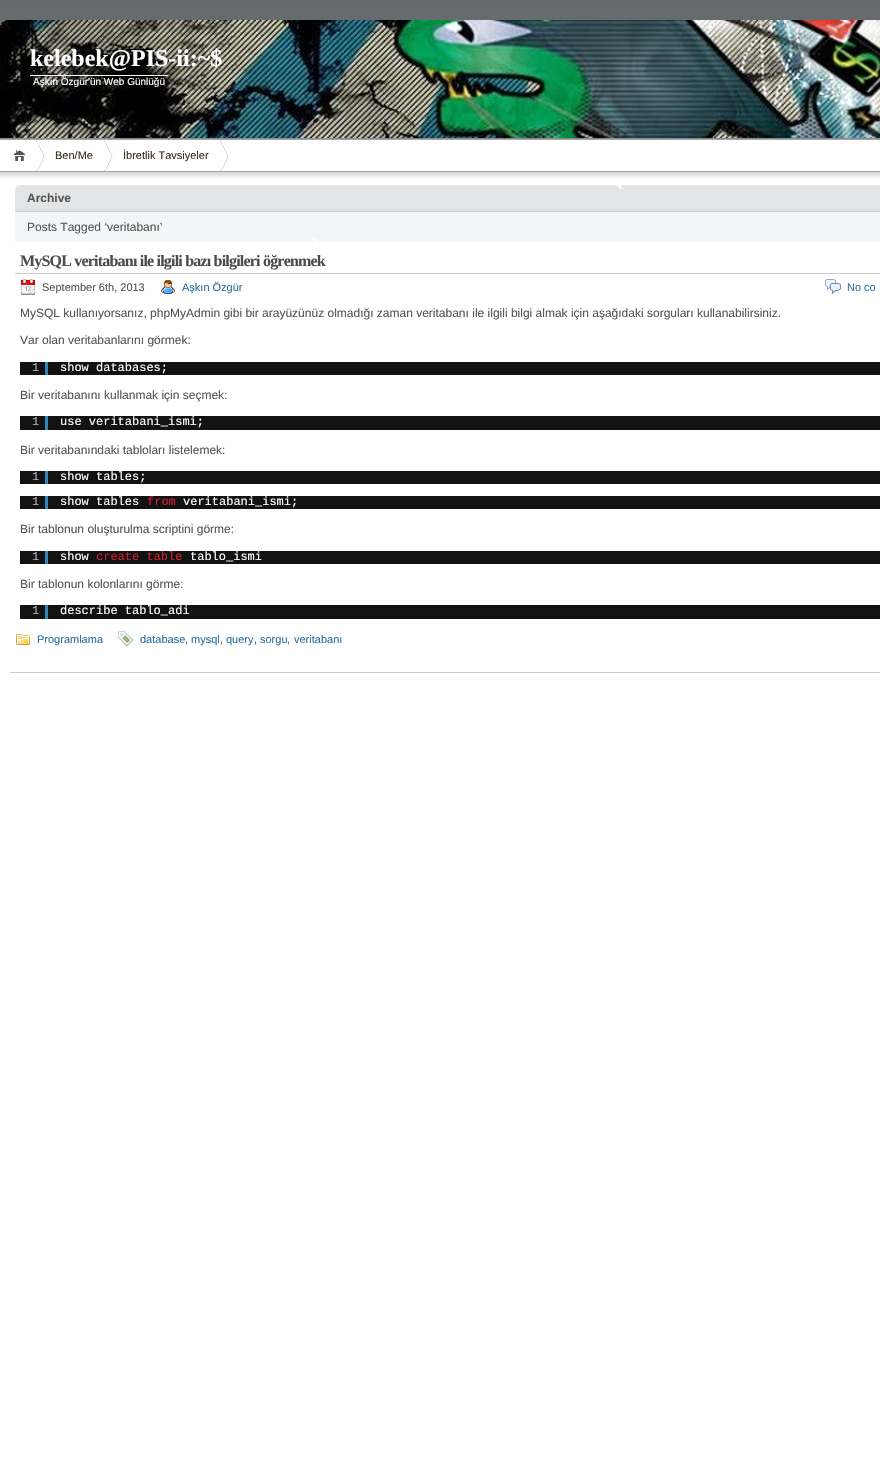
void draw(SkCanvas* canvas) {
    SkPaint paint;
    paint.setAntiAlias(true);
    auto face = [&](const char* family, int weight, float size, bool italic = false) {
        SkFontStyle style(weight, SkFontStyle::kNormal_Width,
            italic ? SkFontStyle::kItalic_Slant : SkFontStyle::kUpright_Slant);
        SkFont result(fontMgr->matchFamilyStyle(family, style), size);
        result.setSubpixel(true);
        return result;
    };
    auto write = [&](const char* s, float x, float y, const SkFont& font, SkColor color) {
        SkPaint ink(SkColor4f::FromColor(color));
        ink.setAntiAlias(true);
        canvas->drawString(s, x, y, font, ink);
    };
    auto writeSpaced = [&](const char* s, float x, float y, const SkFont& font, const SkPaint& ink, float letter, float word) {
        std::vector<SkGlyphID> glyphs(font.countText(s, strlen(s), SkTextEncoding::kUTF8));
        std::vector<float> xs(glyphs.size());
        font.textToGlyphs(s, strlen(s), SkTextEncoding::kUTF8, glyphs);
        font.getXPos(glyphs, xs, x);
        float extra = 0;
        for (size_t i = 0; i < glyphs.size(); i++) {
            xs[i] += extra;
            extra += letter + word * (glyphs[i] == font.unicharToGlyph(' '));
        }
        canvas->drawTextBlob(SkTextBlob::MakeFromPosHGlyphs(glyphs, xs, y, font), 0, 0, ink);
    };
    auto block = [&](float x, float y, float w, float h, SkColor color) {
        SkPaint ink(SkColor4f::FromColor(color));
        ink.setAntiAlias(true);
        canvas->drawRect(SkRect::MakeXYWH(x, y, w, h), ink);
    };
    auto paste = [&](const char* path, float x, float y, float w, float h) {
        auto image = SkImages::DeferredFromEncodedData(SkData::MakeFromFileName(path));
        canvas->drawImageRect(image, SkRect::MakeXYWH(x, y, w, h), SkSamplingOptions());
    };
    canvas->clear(SK_ColorWHITE);
    paste("pic1.png", 0, 0, 880, 139);
    paste("pic2.png", 0, 20, 880, 118);
    block(0, 139, 880, 1, SkColorSetRGB(166, 166, 166));
    auto kFont1 = face("Liberation Serif", 700, 24);
    write("kelebek@PIS-ii:~$", 30, 66, kFont1, SK_ColorWHITE);
    block(30, 75, 138, 1, SK_ColorWHITE);
    auto kFont2 = face("Liberation Sans", 400, 10);
    write("Aşkın Özgür'ün Web Günlüğü", 33, 85, kFont2, SK_ColorWHITE);
    block(0, 171, 880, 1, SkColorSetRGB(166, 166, 166));
    paste("pic3.png", 14, 150, 11, 11);
    paste("pic4.png", 36, 140, 9, 31);
    auto kFont3 = face("Liberation Sans", 400, 11);
    write("Ben/Me", 55, 159, kFont3, SkColorSetRGB(56, 46, 31));
    paste("pic4.png", 104, 140, 9, 31);
    write("İbretlik Tavsiyeler", 123, 159, kFont3, SkColorSetRGB(56, 46, 31));
    paste("pic5.png", 220, 140, 9, 31);
    paste("pic6.png", 0, 172, 880, 7);
    block(15, 185, 865, 26, SkColorSetRGB(227, 228, 230));
    paste("pic7.png", 15, 185, 609, 4);
    block(15, 211, 865, 1, SkColorSetRGB(204, 204, 204));
    auto kFont4 = face("Liberation Sans", 700, 12);
    write("Archive", 27, 202, kFont4, SkColorSetRGB(85, 85, 85));
    block(15, 212, 865, 30, SkColorSetRGB(244, 245, 247));
    paste("pic8.png", 311, 238, 8, 4);
    auto kFont5 = face("Liberation Sans", 400, 12);
    write("Posts Tagged ‘veritabanı’", 27, 231, kFont5, SkColorSetRGB(85, 85, 85));
    block(15, 273, 865, 1, SkColorSetRGB(204, 204, 204));
    auto kFont6 = face("Liberation Serif", 700, 16);
    paint.setColor(SkColorSetRGB(76, 76, 76));
    writeSpaced("MySQL veritabanı ile ilgili bazı bilgileri öğrenmek", 20, 266, kFont6, paint, -0.8f, 0);
    paste("pic9.png", 21, 279, 14, 16);
    write("September 6th, 2013", 42, 291, kFont3, SkColorSetRGB(85, 85, 85));
    paste("pic10.png", 161, 280, 14, 14);
    write("Aşkın Özgür", 182, 291, kFont3, SkColorSetRGB(41, 112, 166));
    paste("pic11.png", 825, 279, 16, 15);
    write("No co", 847, 291, kFont3, SkColorSetRGB(41, 112, 166));
    write("MySQL kullanıyorsanız, phpMyAdmin gibi bir arayüzünüz olmadığı zaman veritabanı ile ilgili bilgi almak için aşağıdaki sorguları kullanabilirsiniz.", 20, 317, kFont5, SkColorSetRGB(85, 85, 85));
    write("Var olan veritabanlarını görmek:", 20, 344, kFont5, SkColorSetRGB(85, 85, 85));
    block(20, 362, 860, 13, SkColorSetRGB(18, 18, 18));
    block(45, 362, 3, 13, SkColorSetRGB(49, 133, 185));
    auto kFont7 = face("Liberation Mono", 400, 12);
    write("1", 32, 371, kFont7, SkColorSetRGB(175, 175, 175));
    write("show databases;", 60, 371, kFont7, SK_ColorWHITE);
    write("Bir veritabanını kullanmak için seçmek:", 20, 399, kFont5, SkColorSetRGB(85, 85, 85));
    block(20, 416, 860, 14, SkColorSetRGB(18, 18, 18));
    block(45, 416, 3, 14, SkColorSetRGB(49, 133, 185));
    write("1", 32, 425, kFont7, SkColorSetRGB(175, 175, 175));
    write("use veritabani_ismi;", 60, 425, kFont7, SK_ColorWHITE);
    write("Bir veritabanındaki tabloları listelemek:", 20, 454, kFont5, SkColorSetRGB(85, 85, 85));
    block(20, 471, 860, 13, SkColorSetRGB(18, 18, 18));
    block(45, 471, 3, 13, SkColorSetRGB(49, 133, 185));
    write("1", 32, 480, kFont7, SkColorSetRGB(175, 175, 175));
    write("show tables;", 60, 480, kFont7, SK_ColorWHITE);
    block(20, 496, 860, 13, SkColorSetRGB(18, 18, 18));
    block(45, 496, 3, 13, SkColorSetRGB(49, 133, 185));
    write("1", 32, 505, kFont7, SkColorSetRGB(175, 175, 175));
    write("show tables", 60, 505, kFont7, SK_ColorWHITE);
    write("from", 147, 505, kFont7, SkColorSetRGB(208, 29, 51));
    write("veritabani_ismi;", 183, 505, kFont7, SK_ColorWHITE);
    write("Bir tablonun oluşturulma scriptini görme:", 20, 533, kFont5, SkColorSetRGB(85, 85, 85));
    block(20, 551, 860, 13, SkColorSetRGB(18, 18, 18));
    block(45, 551, 3, 13, SkColorSetRGB(49, 133, 185));
    write("1", 32, 560, kFont7, SkColorSetRGB(175, 175, 175));
    write("show", 60, 560, kFont7, SK_ColorWHITE);
    write("create table", 96, 560, kFont7, SkColorSetRGB(208, 29, 51));
    write("tablo_ismi", 190, 560, kFont7, SK_ColorWHITE);
    write("Bir tablonun kolonlarını görme:", 20, 588, kFont5, SkColorSetRGB(85, 85, 85));
    block(20, 605, 860, 14, SkColorSetRGB(18, 18, 18));
    block(45, 605, 3, 14, SkColorSetRGB(49, 133, 185));
    write("1", 32, 614, kFont7, SkColorSetRGB(175, 175, 175));
    write("describe tablo_adi", 60, 614, kFont7, SK_ColorWHITE);
    paste("pic12.png", 16, 634, 14, 11);
    write("Programlama", 37, 643, kFont3, SkColorSetRGB(41, 112, 166));
    paste("pic13.png", 118, 631, 16, 16);
    write("database", 140, 643, kFont3, SkColorSetRGB(41, 112, 166));
    write(",", 185, 643, kFont3, SkColorSetRGB(85, 85, 85));
    write("mysql", 191, 643, kFont3, SkColorSetRGB(41, 112, 166));
    write(",", 220, 643, kFont3, SkColorSetRGB(85, 85, 85));
    write("query", 226, 643, kFont3, SkColorSetRGB(41, 112, 166));
    write(",", 254, 643, kFont3, SkColorSetRGB(85, 85, 85));
    write("sorgu", 260, 643, kFont3, SkColorSetRGB(41, 112, 166));
    write(",", 287, 643, kFont3, SkColorSetRGB(85, 85, 85));
    write("veritabanı", 294, 643, kFont3, SkColorSetRGB(41, 112, 166));
    block(10, 672, 870, 1, SkColorSetRGB(204, 204, 204));
}
